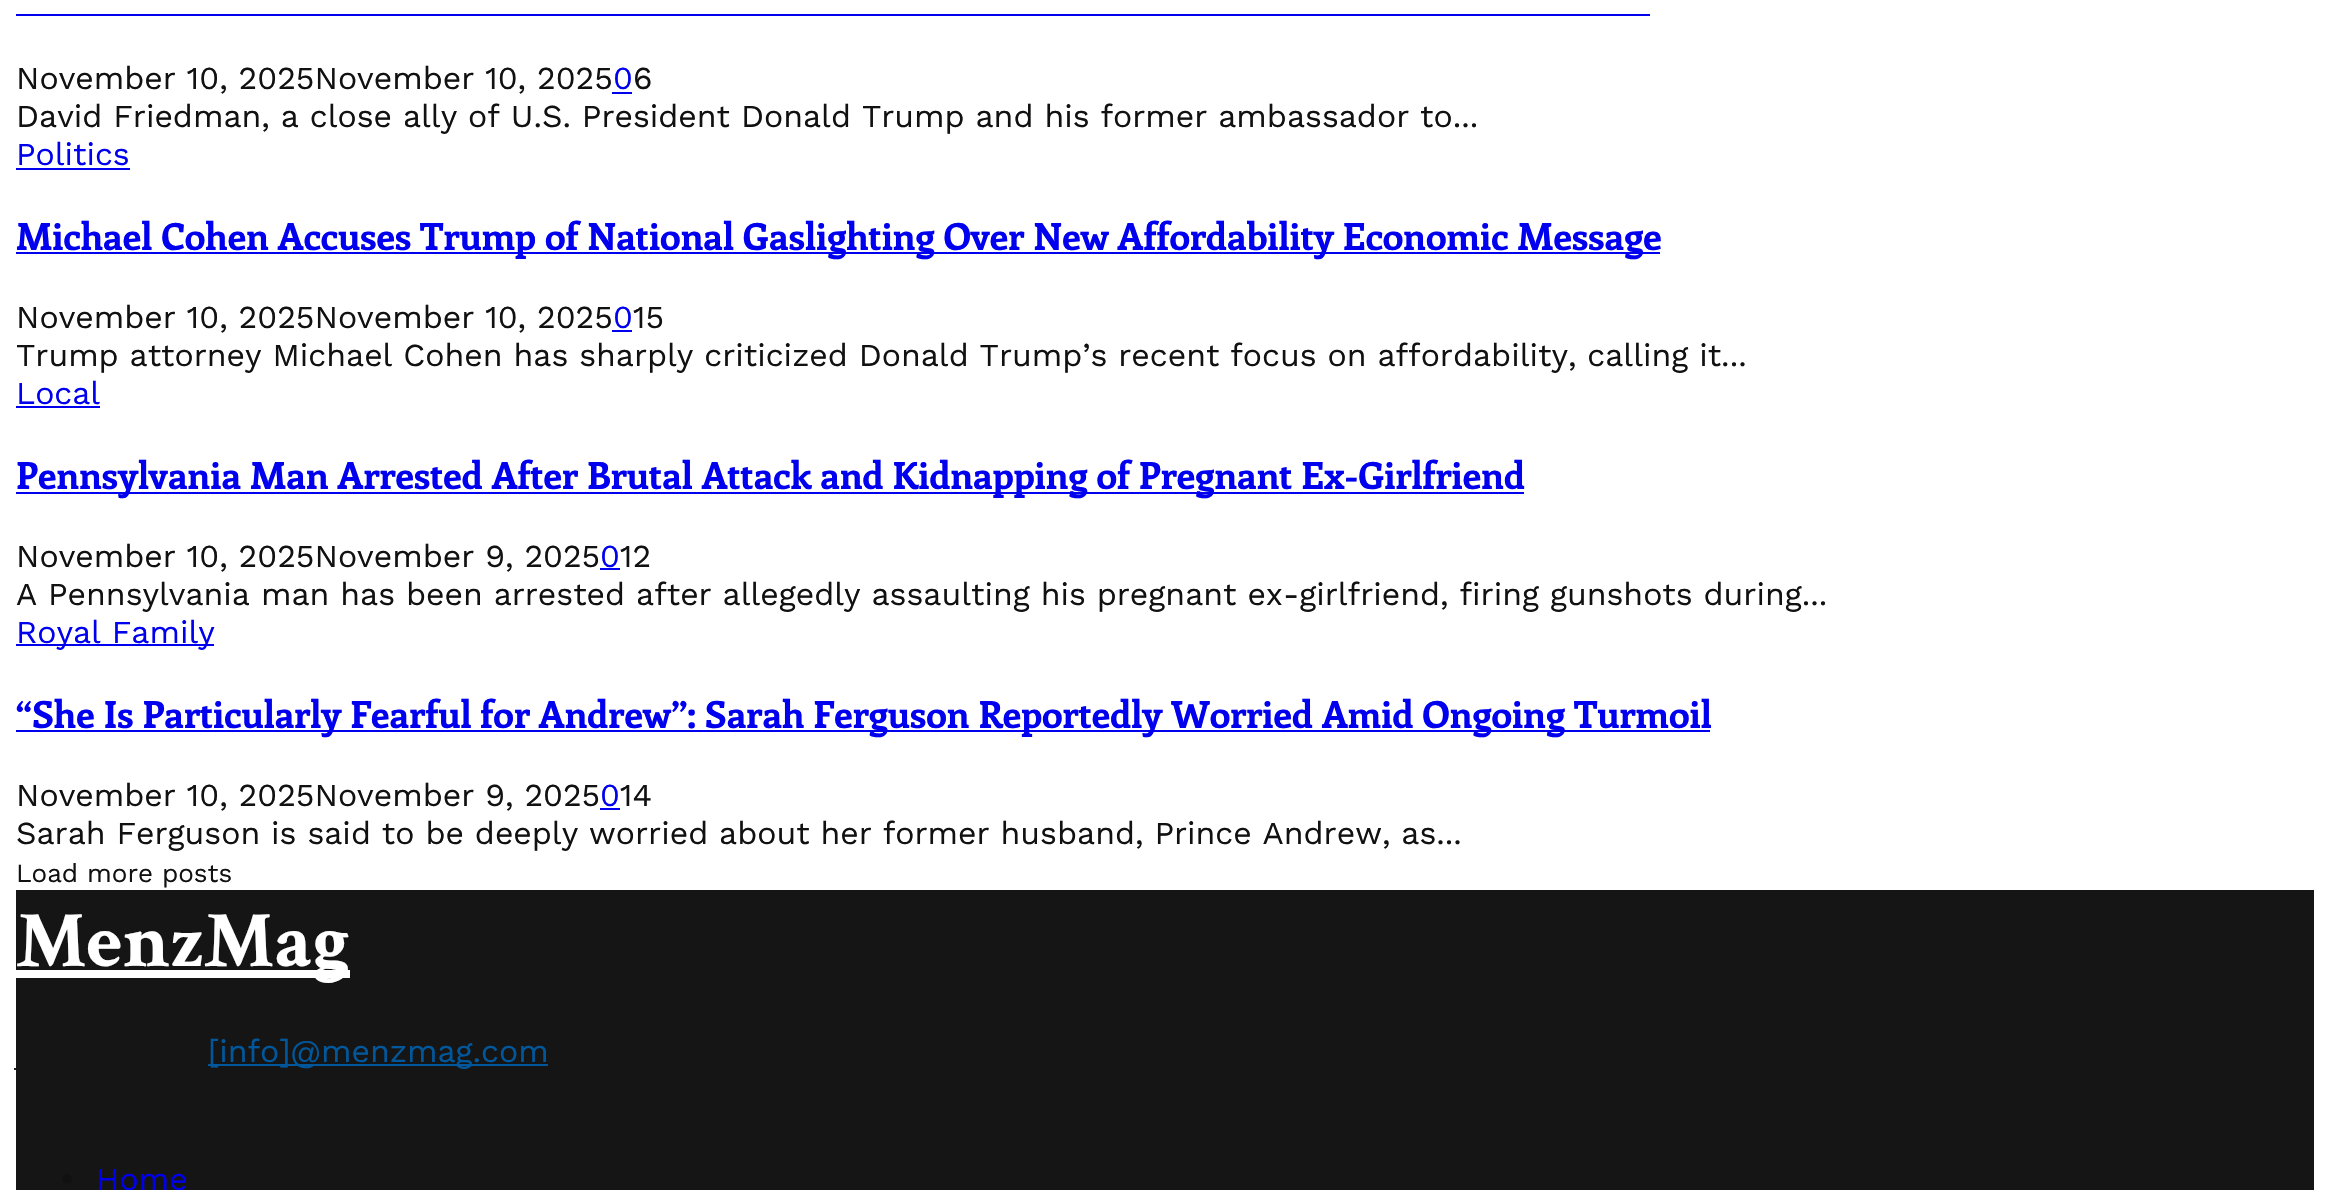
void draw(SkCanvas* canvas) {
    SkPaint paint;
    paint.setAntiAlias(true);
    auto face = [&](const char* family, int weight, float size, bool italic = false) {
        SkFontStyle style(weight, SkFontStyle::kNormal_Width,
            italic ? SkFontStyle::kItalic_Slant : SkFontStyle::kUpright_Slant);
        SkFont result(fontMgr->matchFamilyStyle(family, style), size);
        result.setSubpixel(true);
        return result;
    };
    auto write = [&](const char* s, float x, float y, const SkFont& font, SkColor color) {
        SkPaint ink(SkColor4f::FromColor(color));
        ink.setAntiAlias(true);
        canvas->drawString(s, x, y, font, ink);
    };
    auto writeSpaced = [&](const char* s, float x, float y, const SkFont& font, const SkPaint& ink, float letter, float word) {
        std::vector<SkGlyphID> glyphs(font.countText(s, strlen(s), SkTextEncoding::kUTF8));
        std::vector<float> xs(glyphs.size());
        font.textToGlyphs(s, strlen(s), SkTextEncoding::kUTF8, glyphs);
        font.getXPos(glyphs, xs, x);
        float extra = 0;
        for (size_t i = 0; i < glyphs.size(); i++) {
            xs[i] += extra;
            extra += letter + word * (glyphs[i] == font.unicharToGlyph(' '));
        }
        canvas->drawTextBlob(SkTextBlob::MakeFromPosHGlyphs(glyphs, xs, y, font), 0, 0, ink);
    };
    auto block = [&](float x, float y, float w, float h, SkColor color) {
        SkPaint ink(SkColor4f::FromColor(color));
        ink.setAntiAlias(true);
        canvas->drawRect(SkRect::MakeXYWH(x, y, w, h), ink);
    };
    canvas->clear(SK_ColorWHITE);
    block(16, 14, 1634, 2, SkColorSetRGB(0, 0, 238));
    auto kFont1 = face("Work Sans", 400, 32);
    write("November 10, 2025November 10, 2025", 16, 89, kFont1, SkColorSetRGB(17, 17, 17));
    write("0", 613, 89, kFont1, SkColorSetRGB(0, 0, 238));
    block(612, 92, 20, 2, SkColorSetRGB(0, 0, 238));
    write("6", 633, 89, kFont1, SkColorSetRGB(17, 17, 17));
    write("David Friedman, a close ally of U.S. President Donald Trump and his former ambassador to...", 16, 127, kFont1, SkColorSetRGB(17, 17, 17));
    write("Politics", 16, 165, kFont1, SkColorSetRGB(0, 0, 238));
    block(16, 168, 114, 2, SkColorSetRGB(0, 0, 238));
    block(16, 252, 1644, 2, SkColorSetRGB(0, 0, 238));
    auto kFont2 = face("Enriqueta", 700, 37.45f);
    paint.setColor(SkColorSetRGB(0, 0, 238));
    writeSpaced("Michael Cohen Accuses Trump of National Gaslighting Over New Affordability Economic Message", 16, 250, kFont2, paint, 0, -0.1f);
    write("November 10, 2025November 10, 2025", 16, 328, kFont1, SkColorSetRGB(17, 17, 17));
    write("0", 613, 328, kFont1, SkColorSetRGB(0, 0, 238));
    block(612, 330, 20, 2, SkColorSetRGB(0, 0, 238));
    write("15", 633, 328, kFont1, SkColorSetRGB(17, 17, 17));
    write("Trump attorney Michael Cohen has sharply criticized Donald Trump’s recent focus on affordability, calling it...", 16, 366, kFont1, SkColorSetRGB(17, 17, 17));
    write("Local", 16, 404, kFont1, SkColorSetRGB(0, 0, 238));
    block(16, 406, 84, 2, SkColorSetRGB(0, 0, 238));
    block(16, 492, 1508, 2, SkColorSetRGB(0, 0, 238));
    writeSpaced("Pennsylvania Man Arrested After Brutal Attack and Kidnapping of Pregnant Ex-Girlfriend", 16, 489, kFont2, paint, 0, -0.1f);
    write("November 10, 2025November 9, 2025", 16, 567, kFont1, SkColorSetRGB(17, 17, 17));
    write("0", 600, 567, kFont1, SkColorSetRGB(0, 0, 238));
    block(600, 568, 20, 2, SkColorSetRGB(0, 0, 238));
    write("12", 620, 567, kFont1, SkColorSetRGB(17, 17, 17));
    write("A Pennsylvania man has been arrested after allegedly assaulting his pregnant ex-girlfriend, firing gunshots during...", 16, 605, kFont1, SkColorSetRGB(17, 17, 17));
    block(16, 644, 198, 2, SkColorSetRGB(0, 0, 238));
    write("Royal Family", 16, 643, kFont1, SkColorSetRGB(0, 0, 238));
    block(16, 730, 1694, 2, SkColorSetRGB(0, 0, 238));
    writeSpaced("“She Is Particularly Fearful for Andrew”: Sarah Ferguson Reportedly Worried Amid Ongoing Turmoil", 16, 728, kFont2, paint, 0, -0.1f);
    write("November 10, 2025November 9, 2025", 16, 806, kFont1, SkColorSetRGB(17, 17, 17));
    write("0", 600, 806, kFont1, SkColorSetRGB(0, 0, 238));
    block(600, 808, 20, 2, SkColorSetRGB(0, 0, 238));
    write("14", 620, 806, kFont1, SkColorSetRGB(17, 17, 17));
    write("Sarah Ferguson is said to be deeply worried about her former husband, Prince Andrew, as...", 16, 844, kFont1, SkColorSetRGB(17, 17, 17));
    auto kFont3 = face("Work Sans", 400, 26);
    write("Load more posts", 16, 882, kFont3, SkColorSetRGB(17, 17, 17));
    block(16, 890, 2298, 300, SkColorSetRGB(21, 21, 21));
    block(16, 970, 334, 8, SK_ColorWHITE);
    auto kFont4 = face("Crimson Text", 700, 80);
    write("MenzMag", 16, 966, kFont4, SK_ColorWHITE);
    block(14, 1068, 2, 2, SkColorSetRGB(33, 33, 33));
    block(208, 1064, 340, 2, SkColorSetRGB(1, 87, 155));
    write("[info]@menzmag.com", 208, 1062, kFont1, SkColorSetRGB(1, 87, 155));
    paint.setColor(SkColorSetRGB(17, 17, 17));
    canvas->drawCircle(67, 1179, 5, paint);
    write("Home", 96, 1190, kFont1, SkColorSetRGB(0, 0, 238));
}
